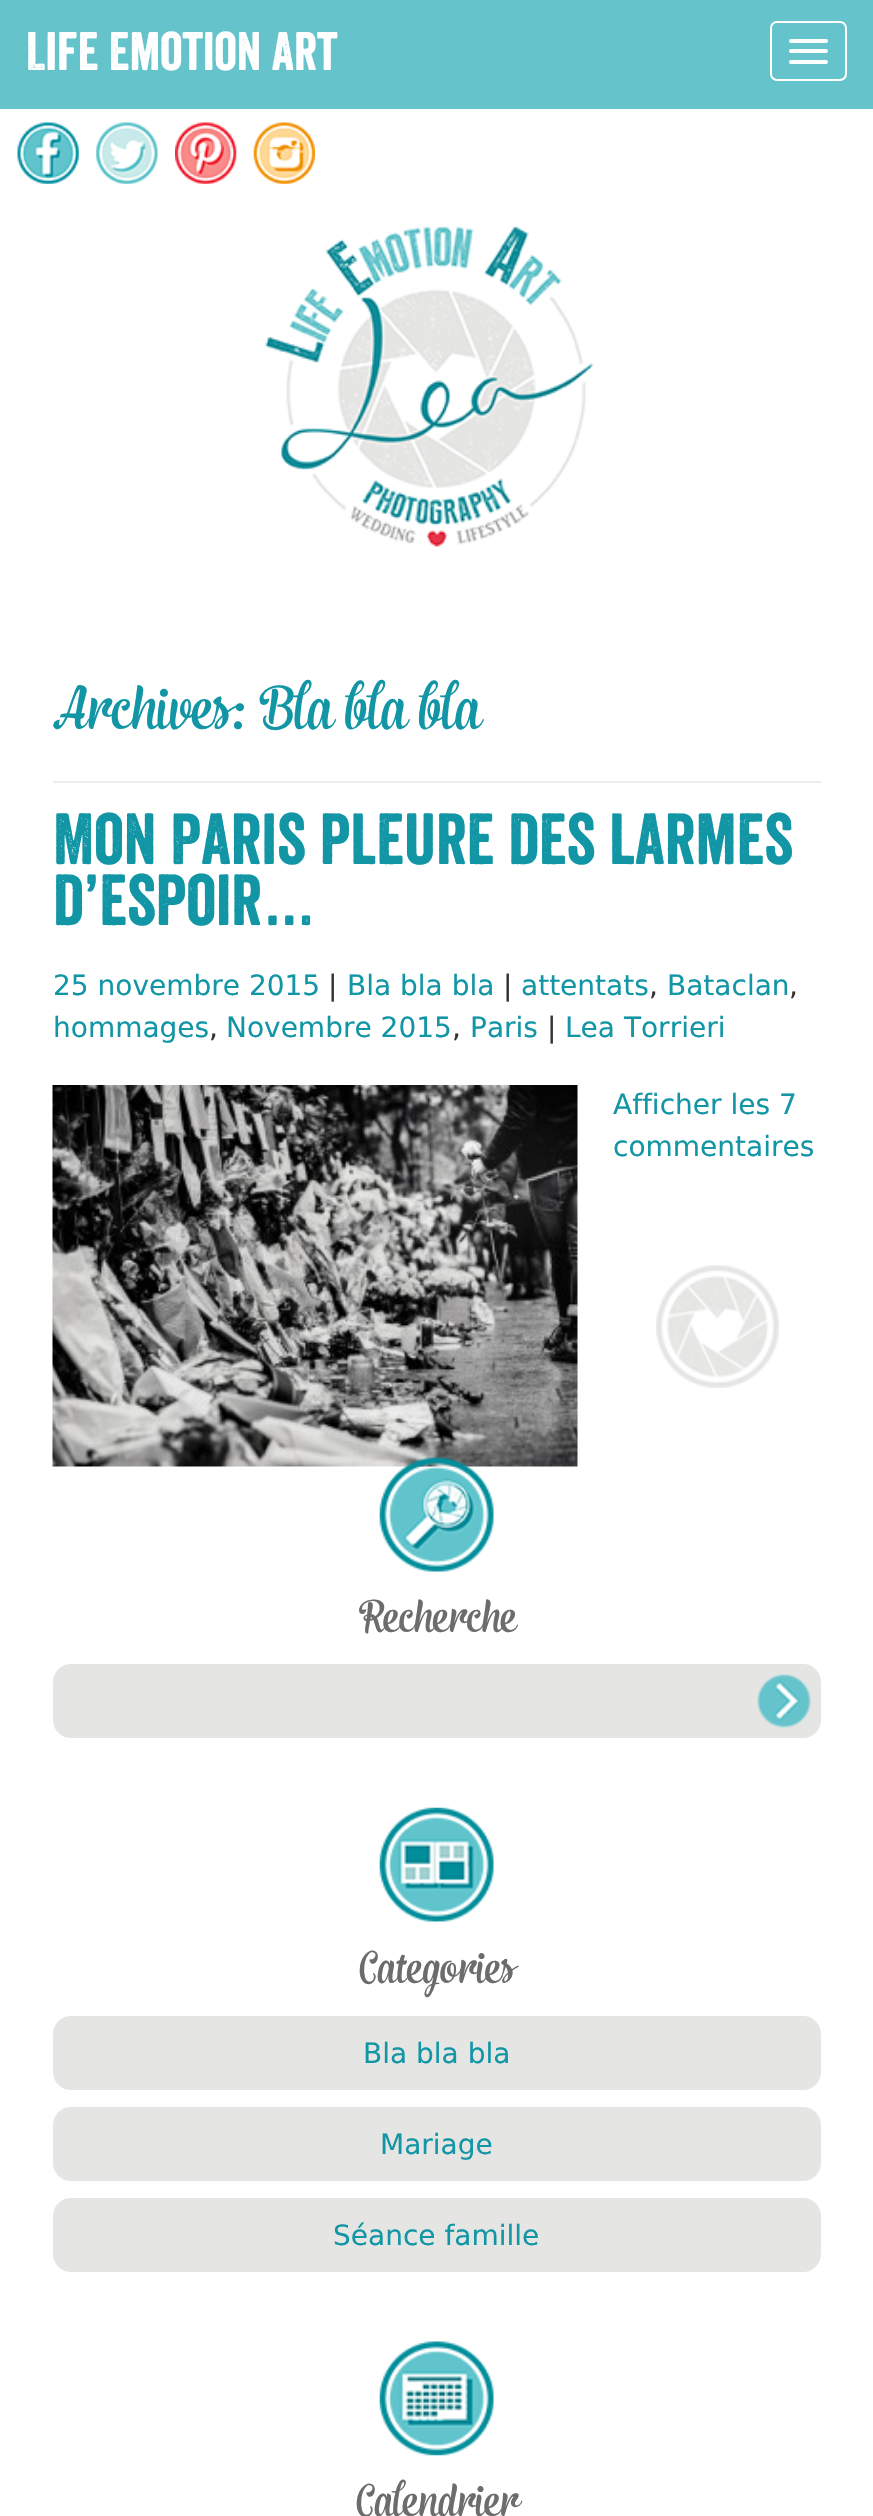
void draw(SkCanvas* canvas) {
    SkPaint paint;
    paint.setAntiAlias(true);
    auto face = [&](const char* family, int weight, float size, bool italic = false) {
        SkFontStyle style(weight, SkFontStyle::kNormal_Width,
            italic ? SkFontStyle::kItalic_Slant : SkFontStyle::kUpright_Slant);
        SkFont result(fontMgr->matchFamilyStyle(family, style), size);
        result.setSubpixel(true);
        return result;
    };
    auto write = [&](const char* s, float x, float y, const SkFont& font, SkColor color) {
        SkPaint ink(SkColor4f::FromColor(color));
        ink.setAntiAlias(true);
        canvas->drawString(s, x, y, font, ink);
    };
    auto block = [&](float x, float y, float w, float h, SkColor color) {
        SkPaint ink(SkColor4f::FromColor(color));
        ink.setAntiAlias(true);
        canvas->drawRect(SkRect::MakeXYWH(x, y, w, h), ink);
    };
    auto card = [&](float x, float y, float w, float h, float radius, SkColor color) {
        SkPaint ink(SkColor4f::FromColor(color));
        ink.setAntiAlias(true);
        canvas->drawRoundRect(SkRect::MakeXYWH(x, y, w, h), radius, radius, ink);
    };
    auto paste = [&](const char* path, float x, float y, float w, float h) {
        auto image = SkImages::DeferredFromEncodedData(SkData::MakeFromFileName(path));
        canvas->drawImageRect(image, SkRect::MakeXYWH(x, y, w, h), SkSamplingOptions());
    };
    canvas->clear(SK_ColorWHITE);
    block(0, 0, 873, 109, SkColorSetRGB(101, 196, 203));
    auto kFont1 = face("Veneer", 400, 52.5f);
    write("Life Emotion Art", 26, 70, kFont1, SK_ColorWHITE);
    paint.setStyle(SkPaint::kStroke_Style);
    paint.setStrokeWidth(2);
    paint.setColor(SK_ColorWHITE);
    canvas->drawRoundRect(SkRect::MakeXYWH(771, 22, 75, 58), 6, 6, paint);
    card(789, 39, 39, 4, 2, SK_ColorWHITE);
    card(789, 49, 39, 4, 2, SK_ColorWHITE);
    card(789, 60, 39, 4, 2, SK_ColorWHITE);
    paste("pic1.png", 17, 122, 62, 62);
    paste("pic2.png", 96, 122, 62, 62);
    paste("pic3.png", 175, 122, 62, 62);
    paste("pic4.png", 253, 122, 62, 62);
    paste("pic5.png", 265, 226, 329, 321);
    block(53, 781, 768, 2, SkColorSetRGB(238, 238, 238));
    auto kFont2 = face("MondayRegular", 400, 61.25f);
    write("Archives: Bla bla bla", 53, 729, kFont2, SkColorSetRGB(18, 150, 165));
    auto kFont3 = face("Veneer", 400, 70);
    write("Mon Paris pleure des larmes", 53, 864, kFont3, SkColorSetRGB(18, 150, 165));
    write("d’espoir…", 53, 925, kFont3, SkColorSetRGB(18, 150, 165));
    auto kFont4 = face("DejaVu Sans", 400, 28);
    write("25 novembre 2015", 53, 995, kFont4, SkColorSetRGB(18, 150, 165));
    write("|", 328, 995, kFont4, SkColorSetRGB(51, 51, 51));
    write("Bla bla bla", 347, 995, kFont4, SkColorSetRGB(18, 150, 165));
    write("|", 503, 995, kFont4, SkColorSetRGB(51, 51, 51));
    write("attentats", 521, 995, kFont4, SkColorSetRGB(18, 150, 165));
    write(",", 649, 995, kFont4, SkColorSetRGB(51, 51, 51));
    write("Bataclan", 667, 995, kFont4, SkColorSetRGB(18, 150, 165));
    write(",", 789, 995, kFont4, SkColorSetRGB(51, 51, 51));
    write("hommages", 53, 1037, kFont4, SkColorSetRGB(18, 150, 165));
    write(",", 209, 1037, kFont4, SkColorSetRGB(51, 51, 51));
    write("Novembre 2015", 226, 1037, kFont4, SkColorSetRGB(18, 150, 165));
    write(",", 452, 1037, kFont4, SkColorSetRGB(51, 51, 51));
    write("Paris", 470, 1037, kFont4, SkColorSetRGB(18, 150, 165));
    write("|", 547, 1037, kFont4, SkColorSetRGB(51, 51, 51));
    write("Lea Torrieri", 565, 1037, kFont4, SkColorSetRGB(18, 150, 165));
    paste("pic6.png", 52, 1085, 526, 382);
    write("Afficher les 7", 613, 1114, kFont4, SkColorSetRGB(18, 150, 165));
    write("commentaires", 613, 1156, kFont4, SkColorSetRGB(18, 150, 165));
    paste("pic7.png", 656, 1265, 123, 123);
    paste("pic8.png", 379, 1457, 115, 115);
    auto kFont5 = face("MondayRegular", 400, 45.5f);
    write("Recherche", 358, 1632, kFont5, SkColorSetRGB(108, 108, 108));
    card(53, 1664, 768, 74, 18, SkColorSetRGB(229, 229, 228));
    paste("pic9.png", 757, 1674, 54, 54);
    paste("pic10.png", 379, 1807, 115, 115);
    write("Categories", 359, 1983, kFont5, SkColorSetRGB(108, 108, 108));
    card(53, 2016, 768, 74, 18, SkColorSetRGB(229, 229, 228));
    write("Bla bla bla", 363, 2063, kFont4, SkColorSetRGB(18, 150, 165));
    card(53, 2107, 768, 74, 18, SkColorSetRGB(229, 229, 228));
    write("Mariage", 380, 2154, kFont4, SkColorSetRGB(18, 150, 165));
    card(53, 2198, 768, 74, 18, SkColorSetRGB(229, 229, 228));
    write("Séance famille", 333, 2245, kFont4, SkColorSetRGB(18, 150, 165));
    paste("pic11.png", 379, 2341, 115, 115);
    write("Calendrier", 356, 2516, kFont5, SkColorSetRGB(108, 108, 108));
}
